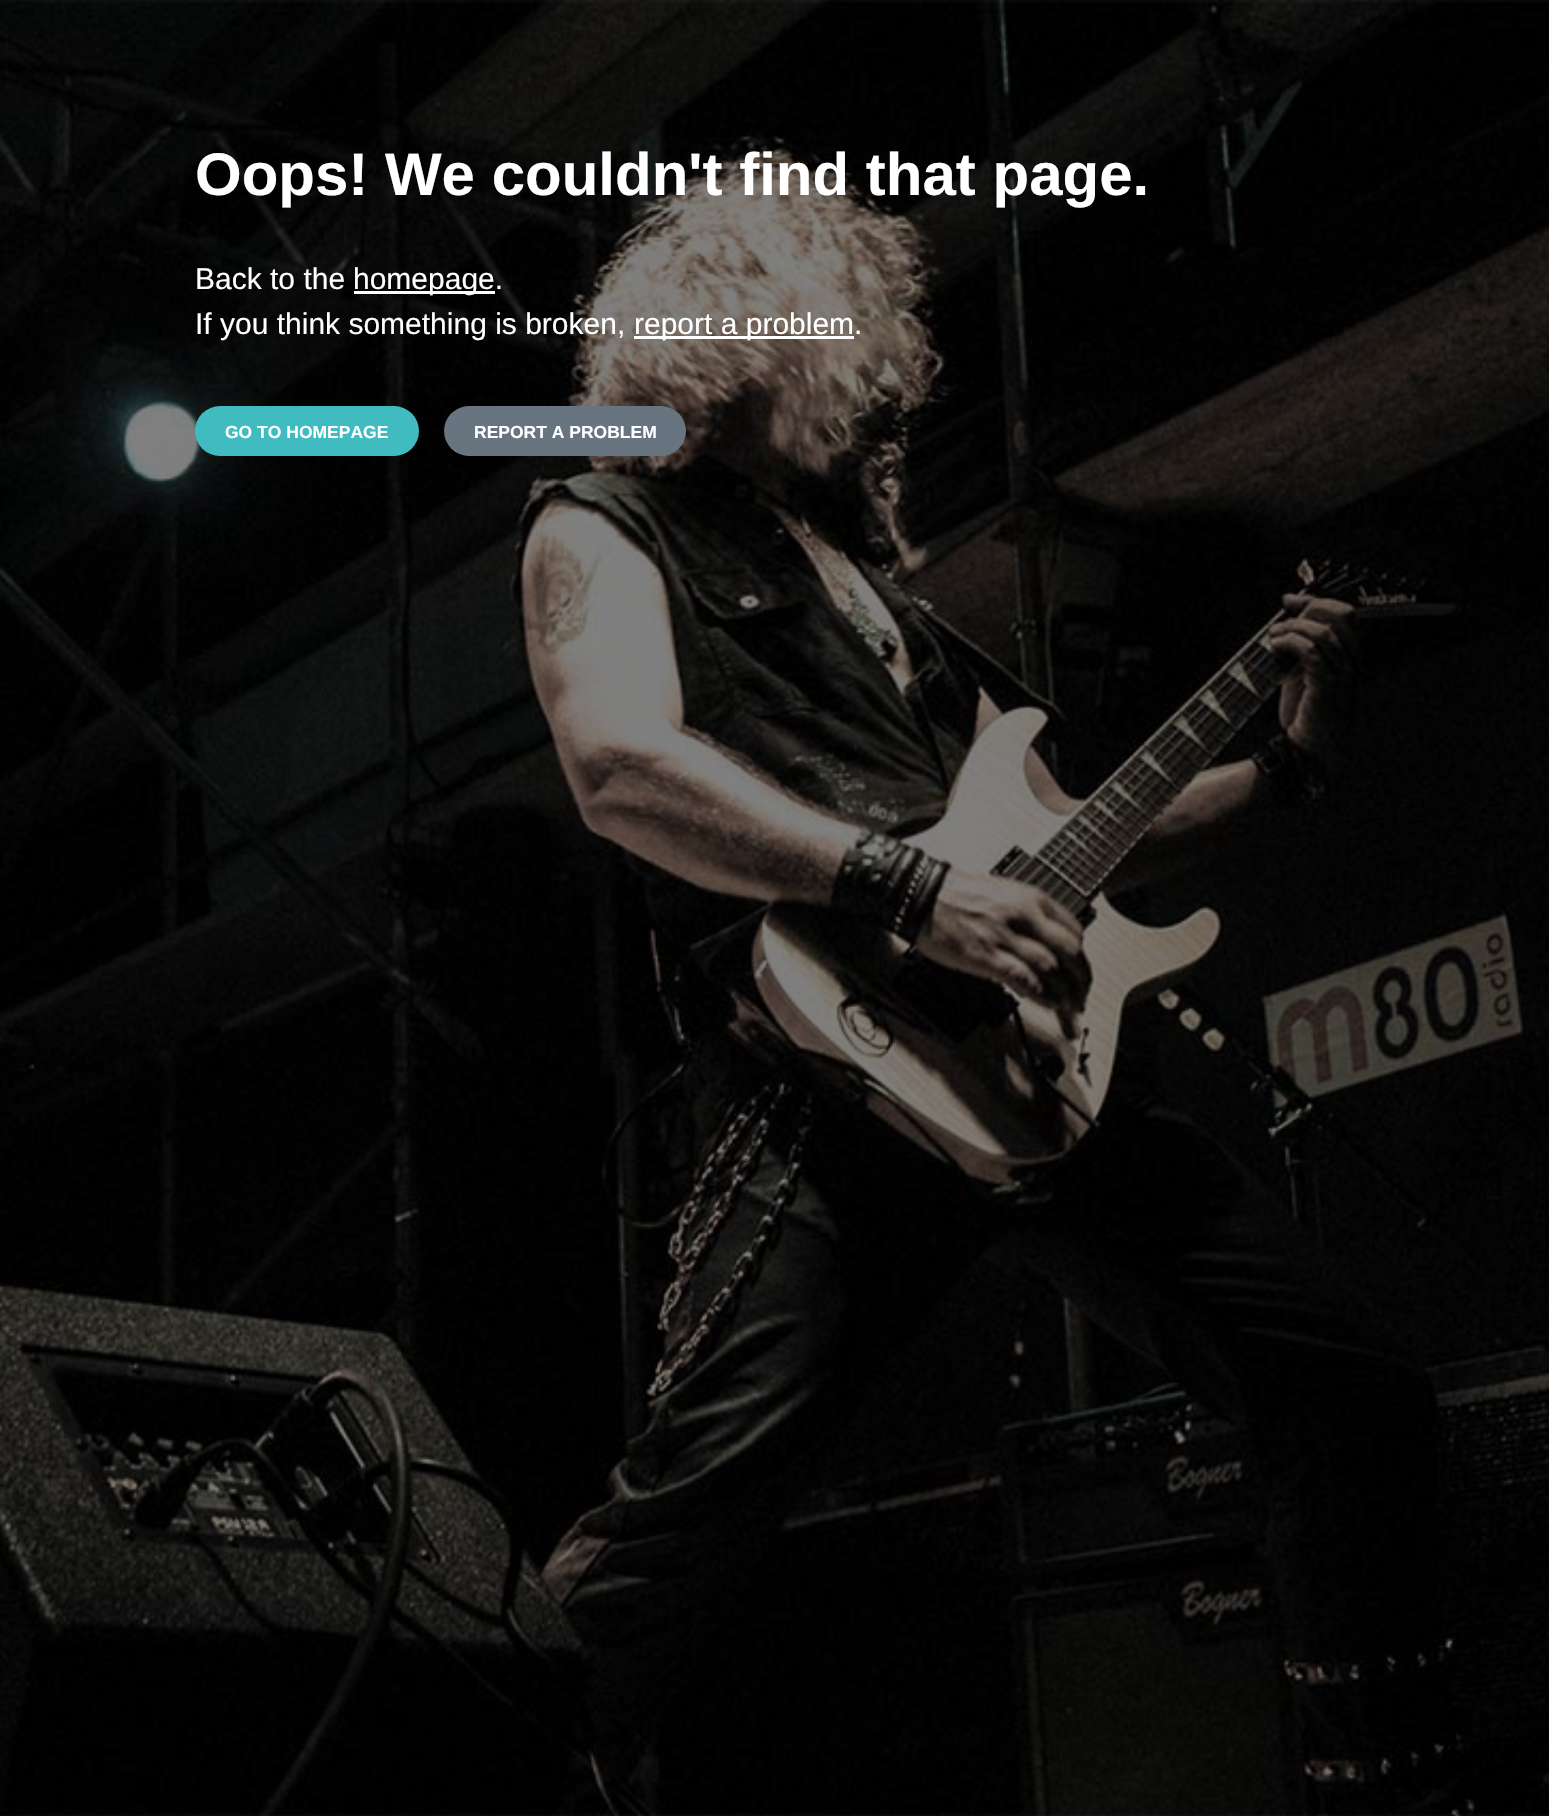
void draw(SkCanvas* canvas) {
    SkPaint paint;
    paint.setAntiAlias(true);
    auto face = [&](const char* family, int weight, float size, bool italic = false) {
        SkFontStyle style(weight, SkFontStyle::kNormal_Width,
            italic ? SkFontStyle::kItalic_Slant : SkFontStyle::kUpright_Slant);
        SkFont result(fontMgr->matchFamilyStyle(family, style), size);
        result.setSubpixel(true);
        return result;
    };
    auto write = [&](const char* s, float x, float y, const SkFont& font, SkColor color) {
        SkPaint ink(SkColor4f::FromColor(color));
        ink.setAntiAlias(true);
        canvas->drawString(s, x, y, font, ink);
    };
    auto block = [&](float x, float y, float w, float h, SkColor color) {
        SkPaint ink(SkColor4f::FromColor(color));
        ink.setAntiAlias(true);
        canvas->drawRect(SkRect::MakeXYWH(x, y, w, h), ink);
    };
    auto card = [&](float x, float y, float w, float h, float radius, SkColor color) {
        SkPaint ink(SkColor4f::FromColor(color));
        ink.setAntiAlias(true);
        canvas->drawRoundRect(SkRect::MakeXYWH(x, y, w, h), radius, radius, ink);
    };
    auto paste = [&](const char* path, float x, float y, float w, float h) {
        auto image = SkImages::DeferredFromEncodedData(SkData::MakeFromFileName(path));
        canvas->drawImageRect(image, SkRect::MakeXYWH(x, y, w, h), SkSamplingOptions());
    };
    canvas->clear(SK_ColorWHITE);
    paste("pic1.png", 0, 0, 1549, 1816);
    auto kFont1 = face("Liberation Sans", 700, 60);
    write("Oops! We couldn't find that page.", 195, 195, kFont1, SK_ColorWHITE);
    auto kFont2 = face("Liberation Sans", 400, 30);
    write("Back to the", 195, 289, kFont2, SK_ColorWHITE);
    block(354, 291, 141, 3, SK_ColorWHITE);
    write("homepage.", 353, 289, kFont2, SK_ColorWHITE);
    write("If you think something is broken,", 195, 334, kFont2, SK_ColorWHITE);
    block(634, 336, 220, 3, SK_ColorWHITE);
    write("report a problem.", 634, 334, kFont2, SK_ColorWHITE);
    card(195, 406, 224, 50, 25, SkColorSetRGB(64, 188, 192));
    auto kFont3 = face("Liberation Sans", 700, 17.5f);
    write("GO TO HOMEPAGE", 225, 438, kFont3, SK_ColorWHITE);
    card(444, 406, 242, 50, 25, SkColorSetRGB(104, 116, 127));
    write("REPORT A PROBLEM", 474, 438, kFont3, SK_ColorWHITE);
}
